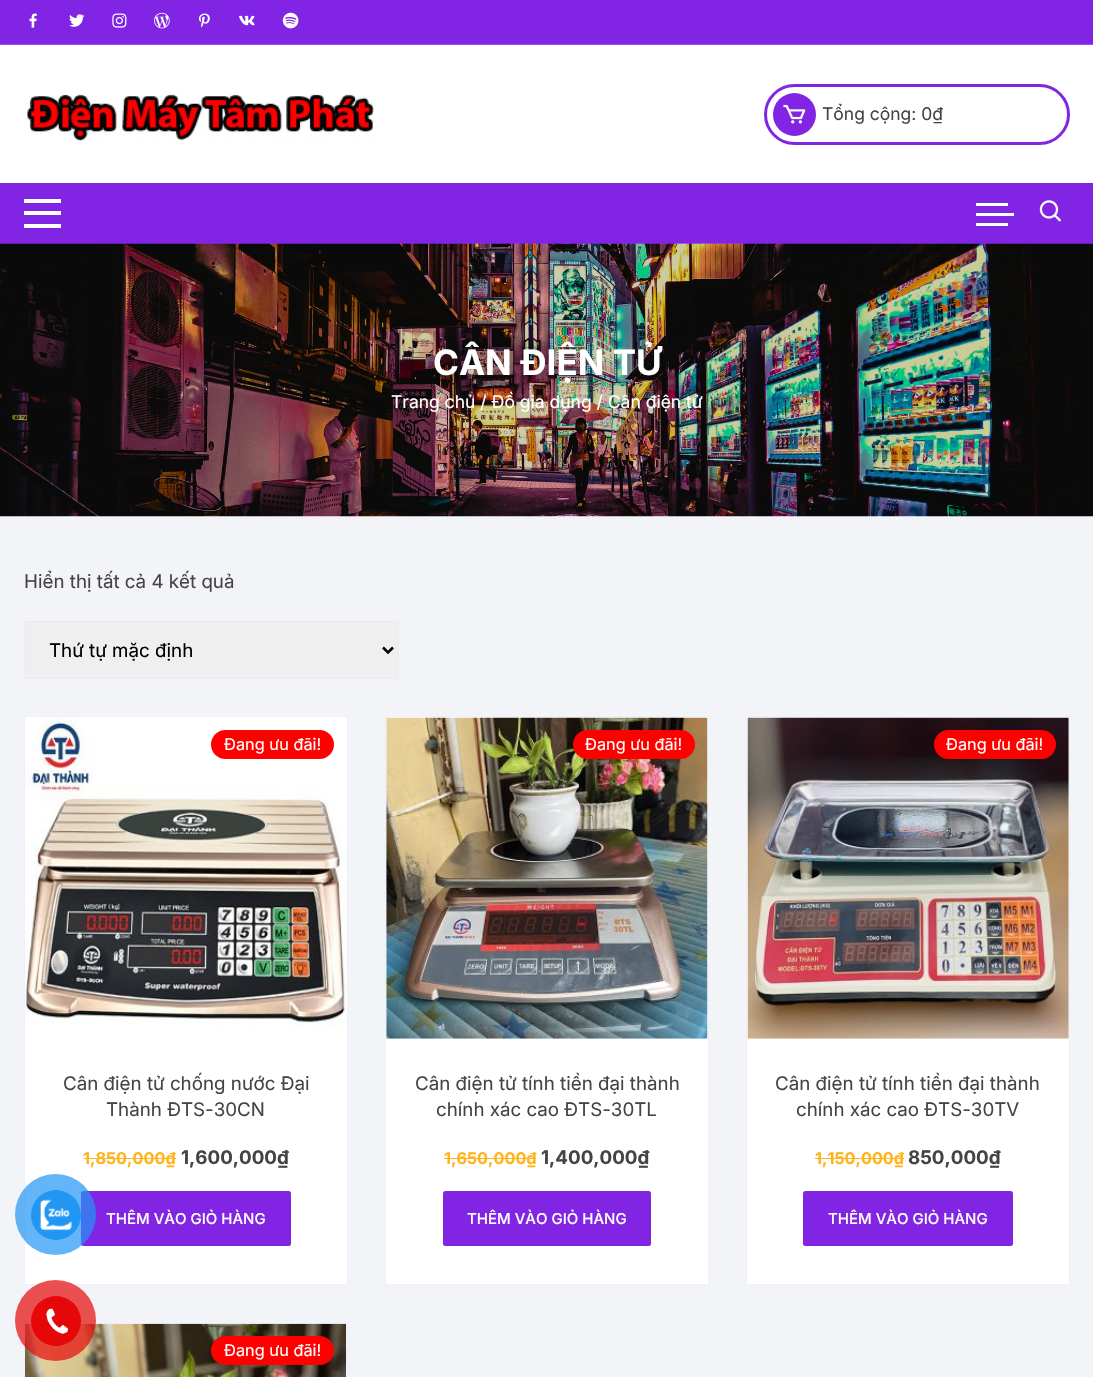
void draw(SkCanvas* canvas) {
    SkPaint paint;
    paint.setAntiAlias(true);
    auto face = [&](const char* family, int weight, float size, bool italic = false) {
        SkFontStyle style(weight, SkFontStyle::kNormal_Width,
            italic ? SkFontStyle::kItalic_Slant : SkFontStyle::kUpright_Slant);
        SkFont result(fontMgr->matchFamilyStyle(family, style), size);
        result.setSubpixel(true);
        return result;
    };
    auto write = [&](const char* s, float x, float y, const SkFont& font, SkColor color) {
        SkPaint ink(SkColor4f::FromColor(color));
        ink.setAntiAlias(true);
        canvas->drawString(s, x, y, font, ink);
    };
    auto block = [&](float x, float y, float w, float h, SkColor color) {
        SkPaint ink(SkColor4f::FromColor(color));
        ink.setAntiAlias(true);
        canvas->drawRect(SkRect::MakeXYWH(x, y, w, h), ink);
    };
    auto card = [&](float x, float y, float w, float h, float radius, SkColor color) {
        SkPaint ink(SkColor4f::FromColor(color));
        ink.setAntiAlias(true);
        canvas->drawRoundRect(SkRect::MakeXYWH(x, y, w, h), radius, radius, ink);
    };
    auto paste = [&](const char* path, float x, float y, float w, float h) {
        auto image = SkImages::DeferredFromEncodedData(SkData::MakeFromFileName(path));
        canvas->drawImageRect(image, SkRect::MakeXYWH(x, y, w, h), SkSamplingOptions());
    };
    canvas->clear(SkColorSetRGB(243, 244, 248));
    block(0, 45, 1093, 138, SK_ColorWHITE);
    block(0, 0, 1093, 44, SkColorSetRGB(130, 36, 227));
    block(0, 44, 1093, 1, SkColorSetRGB(155, 80, 233));
    paste("pic1.png", 29, 13, 8, 15);
    paste("pic2.png", 69, 14, 16, 13);
    paste("pic3.png", 112, 13, 15, 15);
    paste("pic4.png", 154, 12, 16, 17);
    paste("pic5.png", 199, 13, 11, 15);
    paste("pic6.png", 239, 15, 16, 11);
    paste("pic7.png", 282, 12, 17, 17);
    paste("pic8.png", 27, 94, 347, 47);
    paint.setStyle(SkPaint::kStroke_Style);
    paint.setStrokeWidth(3);
    paint.setColor(SkColorSetRGB(130, 36, 227));
    canvas->drawRoundRect(SkRect::MakeXYWH(765.5f, 85.5f, 303, 58), 29, 29, paint);
    paint.setStyle(SkPaint::kFill_Style);
    canvas->drawCircle(794.5f, 114.5f, 21.5f, paint);
    paste("pic9.png", 783, 104, 23, 20);
    auto kFont1 = face("Inter", 400, 17.5f);
    write("Tổng cộng: 0₫", 822, 120, kFont1, SkColorSetRGB(68, 68, 68));
    block(0, 183, 1093, 61, SkColorSetRGB(130, 36, 227));
    block(24, 199, 37, 4, SK_ColorWHITE);
    block(24, 211, 37, 4, SK_ColorWHITE);
    block(24, 224, 37, 4, SK_ColorWHITE);
    block(976, 203, 32, 3, SK_ColorWHITE);
    block(976, 213, 38, 3, SK_ColorWHITE);
    block(976, 223, 32, 3, SK_ColorWHITE);
    paste("pic10.png", 1039, 200, 23, 22);
    paste("pic11.png", 0, 243, 1093, 274);
    auto kFont2 = face("Inter", 700, 35);
    write("CÂN ĐIỆN TỬ", 433, 375, kFont2, SK_ColorWHITE);
    write("Trang chủ / Đồ gia dụng / Cân điện tử", 391, 408, kFont1, SK_ColorWHITE);
    auto kFont3 = face("Inter", 400, 18.75f);
    write("Hiển thị tất cả 4 kết quả", 24, 588, kFont3, SkColorSetRGB(68, 68, 68));
    paint.setColor(SkColorSetRGB(239, 239, 239));
    canvas->drawRect(SkRect::MakeXYWH(24.5f, 621.5f, 374, 57), paint);
    paint.setStyle(SkPaint::kStroke_Style);
    paint.setStrokeWidth(1);
    paint.setColor(SkColorSetRGB(236, 236, 236));
    canvas->drawRect(SkRect::MakeXYWH(24.5f, 621.5f, 374, 57), paint);
    paint.setStrokeWidth(2.5f);
    paint.setColor(SK_ColorBLACK);
    canvas->drawPath(SkPathBuilder().moveTo(383, 647.5f).lineTo(388, 652.5f).lineTo(393, 647.5f).detach(), paint);
    write("Thứ tự mặc định", 49, 657, kFont3, SK_ColorBLACK);
    paint.setStyle(SkPaint::kFill_Style);
    paint.setColor(SK_ColorWHITE);
    canvas->drawRect(SkRect::MakeXYWH(24.5f, 716.5f, 323, 568), paint);
    paint.setStyle(SkPaint::kStroke_Style);
    paint.setStrokeWidth(1);
    paint.setColor(SkColorSetRGB(238, 241, 253));
    canvas->drawRect(SkRect::MakeXYWH(24.5f, 716.5f, 323, 568), paint);
    paste("pic12.png", 25, 718, 321, 308);
    card(211, 730, 123, 29, 14.5f, SkColorSetRGB(255, 0, 0));
    auto kFont4 = face("Inter", 400, 16.25f);
    write("Đang ưu đãi!", 224, 750, kFont4, SK_ColorWHITE);
    write("Cân điện tử chống nước Đại", 63, 1090, kFont3, SkColorSetRGB(68, 68, 68));
    write("Thành ĐTS-30CN", 106, 1116, kFont3, SkColorSetRGB(68, 68, 68));
    auto kFont5 = face("Inter", 700, 16.25f);
    write("1,850,000₫", 83, 1164, kFont5, SkColorSetRGB(255, 180, 29));
    block(84, 1158, 92, 1, SkColorSetRGB(255, 180, 29));
    auto kFont6 = face("Inter", 700, 18.75f);
    write("1,600,000₫", 181, 1164, kFont6, SkColorSetRGB(68, 68, 68));
    card(81, 1191, 210, 55, 2.5f, SkColorSetRGB(130, 36, 227));
    auto kFont7 = face("Inter", 500, 15);
    write("THÊM VÀO GIỎ HÀNG", 106, 1224, kFont7, SK_ColorWHITE);
    paint.setStyle(SkPaint::kFill_Style);
    paint.setColor(SK_ColorWHITE);
    canvas->drawRect(SkRect::MakeXYWH(385.5f, 716.5f, 323, 568), paint);
    paint.setStyle(SkPaint::kStroke_Style);
    paint.setColor(SkColorSetRGB(238, 241, 253));
    canvas->drawRect(SkRect::MakeXYWH(385.5f, 716.5f, 323, 568), paint);
    paste("pic13.png", 386, 717, 322, 322);
    card(573, 730, 122, 29, 14.5f, SkColorSetRGB(255, 0, 0));
    write("Đang ưu đãi!", 585, 750, kFont4, SK_ColorWHITE);
    write("Cân điện tử tính tiền đại thành", 415, 1090, kFont3, SkColorSetRGB(68, 68, 68));
    write("chính xác cao ĐTS-30TL", 436, 1116, kFont3, SkColorSetRGB(68, 68, 68));
    write("1,650,000₫", 444, 1164, kFont5, SkColorSetRGB(255, 180, 29));
    block(444, 1158, 92, 1, SkColorSetRGB(255, 180, 29));
    write("1,400,000₫", 541, 1164, kFont6, SkColorSetRGB(68, 68, 68));
    card(443, 1191, 208, 55, 2.5f, SkColorSetRGB(130, 36, 227));
    write("THÊM VÀO GIỎ HÀNG", 467, 1224, kFont7, SK_ColorWHITE);
    paint.setStyle(SkPaint::kFill_Style);
    paint.setColor(SK_ColorWHITE);
    canvas->drawRect(SkRect::MakeXYWH(746.5f, 716.5f, 323, 568), paint);
    paint.setStyle(SkPaint::kStroke_Style);
    paint.setColor(SkColorSetRGB(238, 241, 253));
    canvas->drawRect(SkRect::MakeXYWH(746.5f, 716.5f, 323, 568), paint);
    paste("pic14.png", 747, 717, 322, 322);
    card(934, 730, 122, 29, 14.5f, SkColorSetRGB(255, 0, 0));
    write("Đang ưu đãi!", 946, 750, kFont4, SK_ColorWHITE);
    write("Cân điện tử tính tiền đại thành", 775, 1090, kFont3, SkColorSetRGB(68, 68, 68));
    write("chính xác cao ĐTS-30TV", 796, 1116, kFont3, SkColorSetRGB(68, 68, 68));
    write("1,150,000₫", 815, 1164, kFont5, SkColorSetRGB(255, 180, 29));
    block(815, 1158, 89, 1, SkColorSetRGB(255, 180, 29));
    write("850,000₫", 908, 1164, kFont6, SkColorSetRGB(68, 68, 68));
    card(803, 1191, 210, 55, 2.5f, SkColorSetRGB(130, 36, 227));
    write("THÊM VÀO GIỎ HÀNG", 828, 1224, kFont7, SK_ColorWHITE);
    block(346, 1324, 1, 53, SK_ColorWHITE);
    canvas->drawRect(SkRect::MakeXYWH(24.5f, 1323.5f, 323, 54), paint);
    paste("pic15.png", 25, 1323, 322, 54);
    card(211, 1336, 123, 29, 14.5f, SkColorSetRGB(255, 0, 0));
    write("Đang ưu đãi!", 224, 1356, kFont4, SK_ColorWHITE);
    paint.setStyle(SkPaint::kFill_Style);
    paint.setColor(SkColorSetARGB(179, 33, 150, 243));
    canvas->drawCircle(55.5f, 1214.5f, 40.5f, paint);
    paint.setColor(SkColorSetRGB(33, 150, 243));
    canvas->drawCircle(56, 1215, 25, paint);
    paste("pic16.png", 39, 1199, 33, 32);
    paint.setColor(SkColorSetARGB(179, 230, 8, 8));
    canvas->drawCircle(55.5f, 1320.5f, 40.5f, paint);
    paint.setColor(SkColorSetRGB(230, 8, 8));
    canvas->drawCircle(56, 1321, 25, paint);
    paste("pic17.png", 46, 1308, 22, 26);
}
